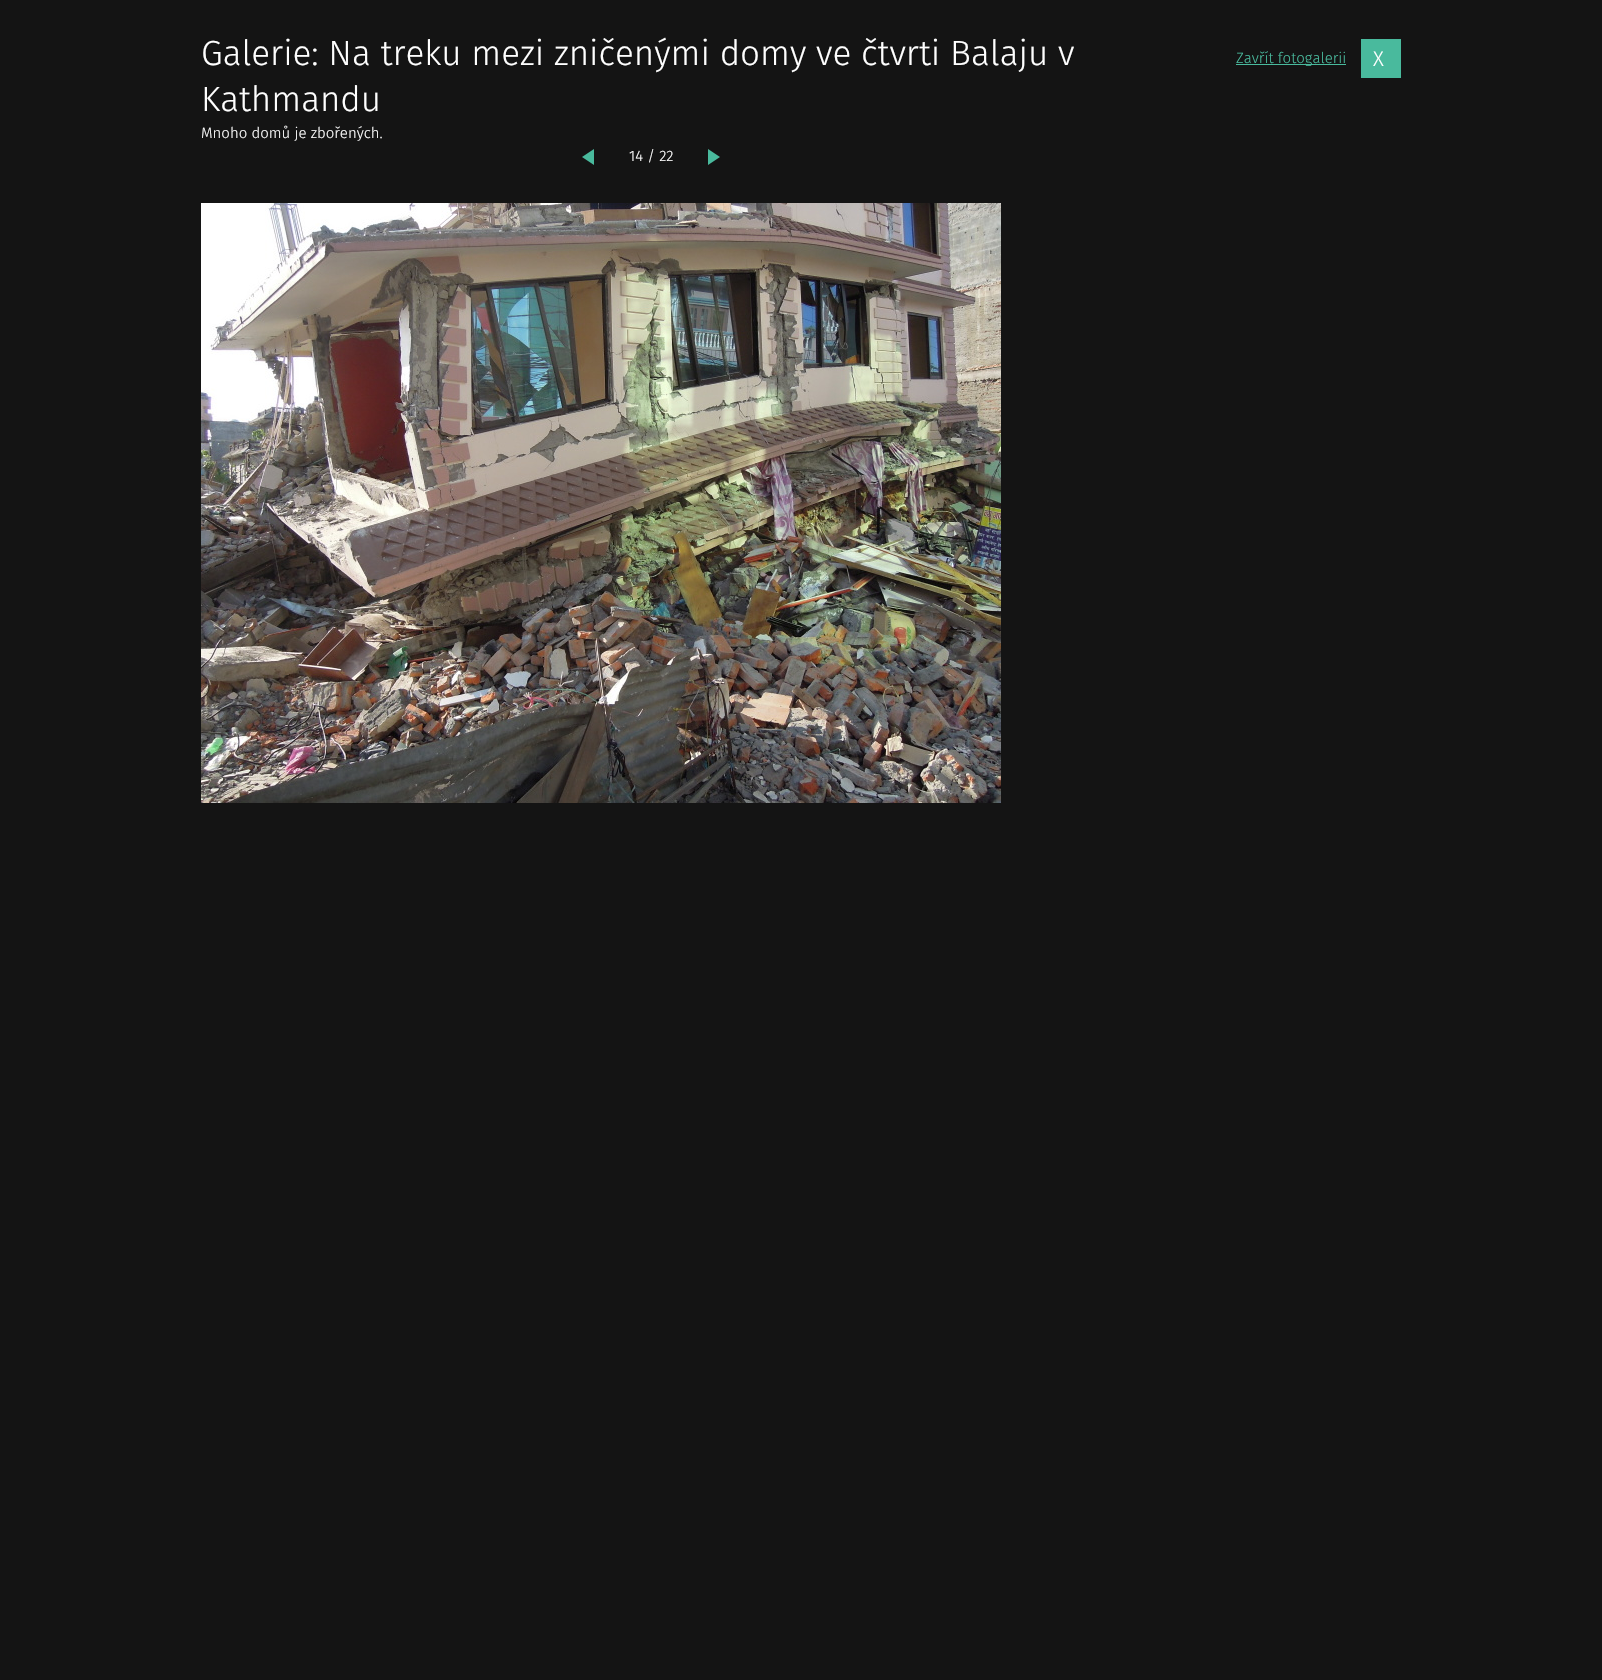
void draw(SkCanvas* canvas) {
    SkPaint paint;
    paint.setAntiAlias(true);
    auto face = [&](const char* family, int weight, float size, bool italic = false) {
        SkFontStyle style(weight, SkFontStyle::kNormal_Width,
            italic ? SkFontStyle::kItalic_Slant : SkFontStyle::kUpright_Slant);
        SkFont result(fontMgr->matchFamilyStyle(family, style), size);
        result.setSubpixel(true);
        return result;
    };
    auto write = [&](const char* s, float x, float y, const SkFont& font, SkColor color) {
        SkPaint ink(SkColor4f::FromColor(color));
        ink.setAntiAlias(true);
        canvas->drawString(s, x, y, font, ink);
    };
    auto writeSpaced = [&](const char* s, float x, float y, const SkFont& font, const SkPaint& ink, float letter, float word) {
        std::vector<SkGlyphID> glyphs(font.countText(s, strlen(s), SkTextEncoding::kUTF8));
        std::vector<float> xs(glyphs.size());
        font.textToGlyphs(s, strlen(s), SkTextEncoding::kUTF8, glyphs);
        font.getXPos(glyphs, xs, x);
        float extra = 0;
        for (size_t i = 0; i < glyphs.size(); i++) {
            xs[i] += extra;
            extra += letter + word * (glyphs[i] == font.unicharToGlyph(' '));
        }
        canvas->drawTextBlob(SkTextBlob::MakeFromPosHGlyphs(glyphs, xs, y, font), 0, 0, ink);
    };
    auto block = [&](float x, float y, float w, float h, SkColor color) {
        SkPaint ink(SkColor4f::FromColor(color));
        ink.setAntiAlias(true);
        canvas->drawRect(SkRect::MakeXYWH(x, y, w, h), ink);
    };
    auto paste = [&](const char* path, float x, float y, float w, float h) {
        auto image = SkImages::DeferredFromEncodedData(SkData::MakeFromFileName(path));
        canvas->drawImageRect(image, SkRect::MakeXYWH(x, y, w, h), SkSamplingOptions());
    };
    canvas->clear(SkColorSetRGB(20, 20, 20));
    auto kFont1 = face("Fira Sans", 300, 35);
    write("Galerie: Na treku mezi zničenými domy ve čtvrti Balaju v", 201, 65, kFont1, SK_ColorWHITE);
    write("Kathmandu", 201, 111, kFont1, SK_ColorWHITE);
    auto kFont2 = face("Fira Sans", 300, 15);
    write("Mnoho domů je zbořených.", 201, 138, kFont2, SK_ColorWHITE);
    paint.setColor(SkColorSetRGB(73, 186, 157));
    canvas->drawPath(SkPathBuilder().moveTo(594, 149).lineTo(594, 165).lineTo(582, 157).close().detach(), paint);
    write("14 / 22", 629, 161, kFont2, SK_ColorWHITE);
    canvas->drawPath(SkPathBuilder().moveTo(708, 165).lineTo(708, 149).lineTo(720, 157).close().detach(), paint);
    block(1236, 64, 110, 1, SkColorSetRGB(73, 186, 157));
    write("Zavřít fotogalerii", 1236, 63, kFont2, SkColorSetRGB(73, 186, 157));
    block(1361, 39, 40, 39, SkColorSetRGB(73, 186, 157));
    auto kFont3 = face("Fira Sans", 300, 21);
    paint.setColor(SK_ColorWHITE);
    writeSpaced("X", 1373, 66, kFont3, paint, 5, 0);
    paste("pic1.png", 201, 203, 800, 600);
}
